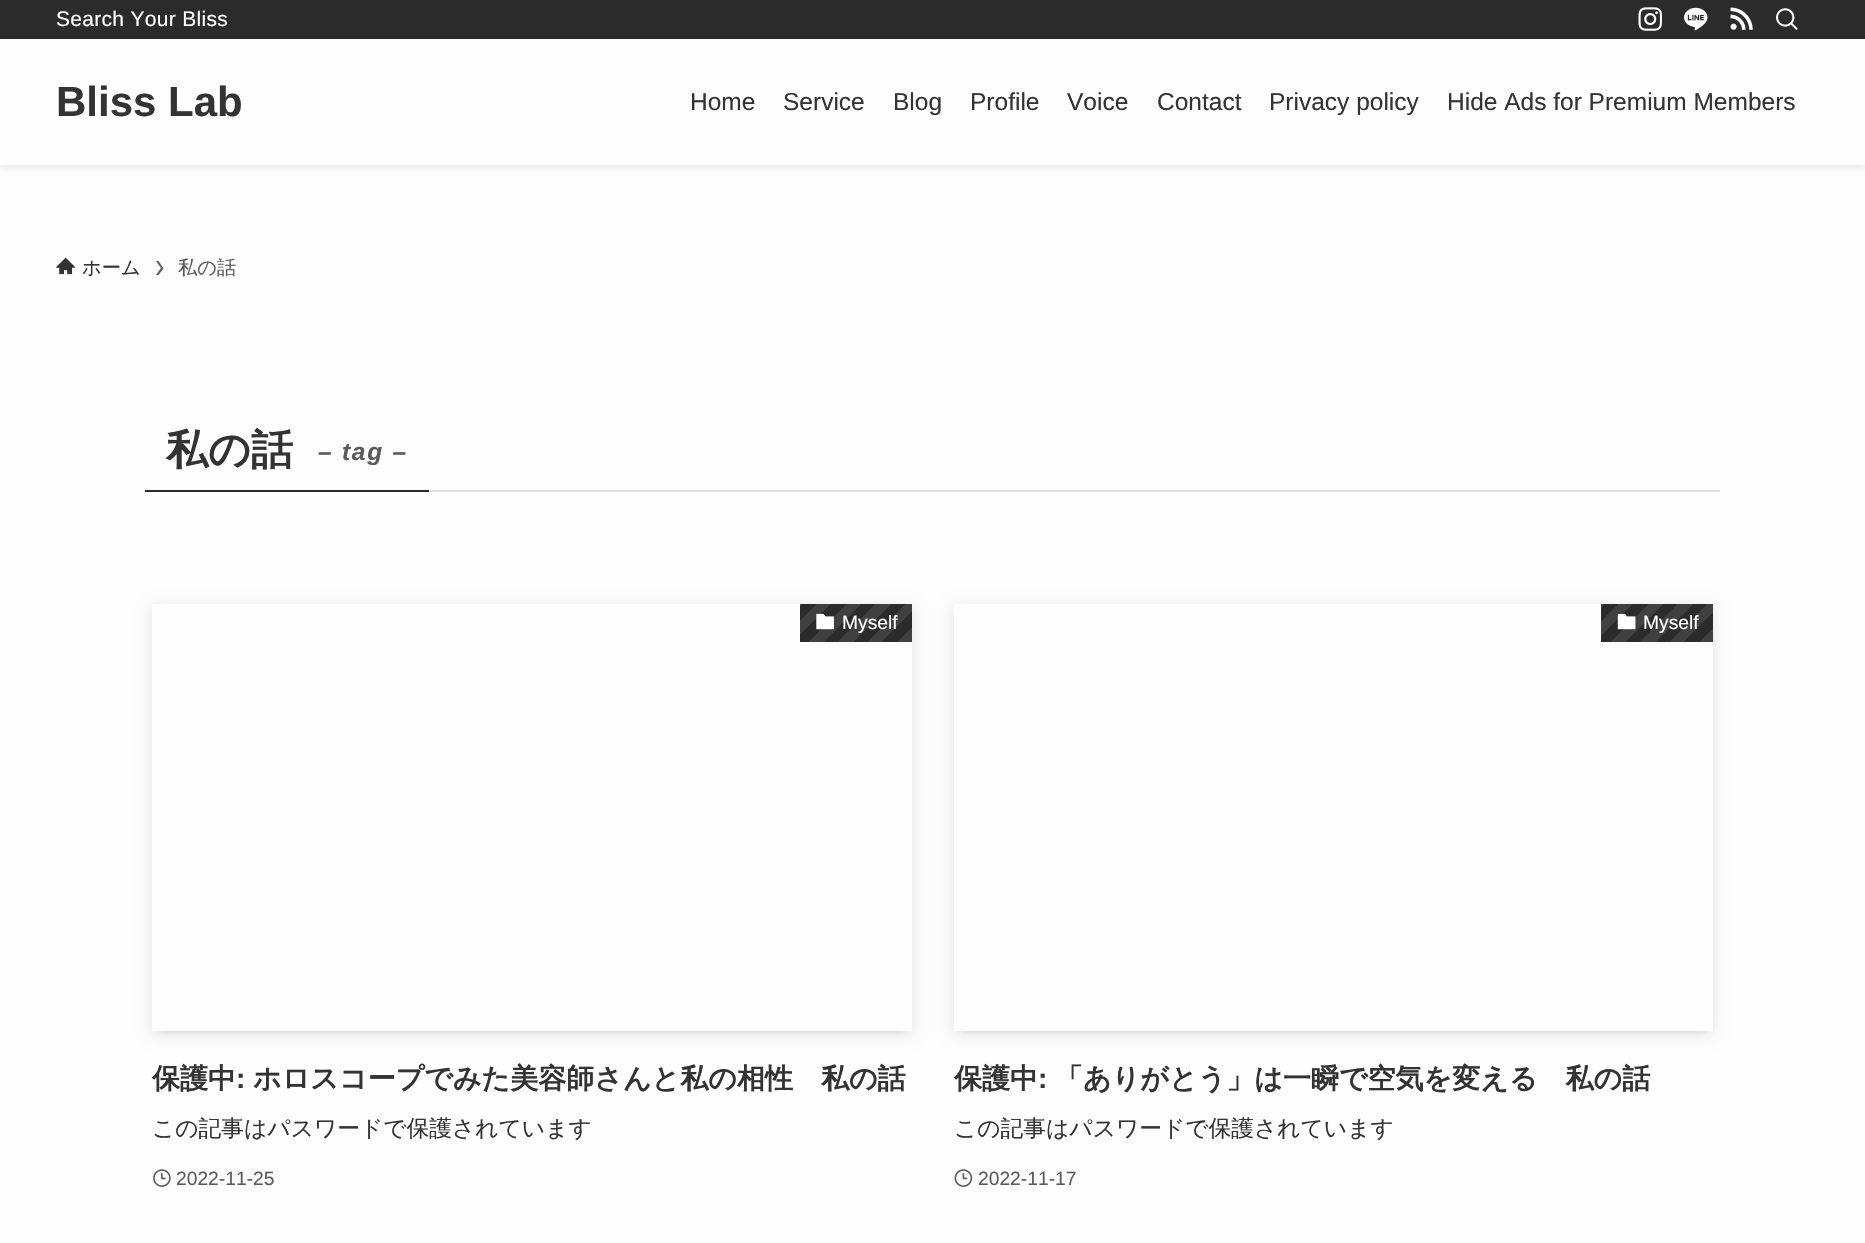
void draw(SkCanvas* canvas) {
    SkPaint paint;
    paint.setAntiAlias(true);
    auto face = [&](const char* family, int weight, float size, bool italic = false) {
        SkFontStyle style(weight, SkFontStyle::kNormal_Width,
            italic ? SkFontStyle::kItalic_Slant : SkFontStyle::kUpright_Slant);
        SkFont result(fontMgr->matchFamilyStyle(family, style), size);
        result.setSubpixel(true);
        return result;
    };
    auto write = [&](const char* s, float x, float y, const SkFont& font, SkColor color) {
        SkPaint ink(SkColor4f::FromColor(color));
        ink.setAntiAlias(true);
        canvas->drawString(s, x, y, font, ink);
    };
    auto writeSpaced = [&](const char* s, float x, float y, const SkFont& font, const SkPaint& ink, float letter, float word) {
        std::vector<SkGlyphID> glyphs(font.countText(s, strlen(s), SkTextEncoding::kUTF8));
        std::vector<float> xs(glyphs.size());
        font.textToGlyphs(s, strlen(s), SkTextEncoding::kUTF8, glyphs);
        font.getXPos(glyphs, xs, x);
        float extra = 0;
        for (size_t i = 0; i < glyphs.size(); i++) {
            xs[i] += extra;
            extra += letter + word * (glyphs[i] == font.unicharToGlyph(' '));
        }
        canvas->drawTextBlob(SkTextBlob::MakeFromPosHGlyphs(glyphs, xs, y, font), 0, 0, ink);
    };
    auto block = [&](float x, float y, float w, float h, SkColor color) {
        SkPaint ink(SkColor4f::FromColor(color));
        ink.setAntiAlias(true);
        canvas->drawRect(SkRect::MakeXYWH(x, y, w, h), ink);
    };
    auto paste = [&](const char* path, float x, float y, float w, float h) {
        auto image = SkImages::DeferredFromEncodedData(SkData::MakeFromFileName(path));
        canvas->drawImageRect(image, SkRect::MakeXYWH(x, y, w, h), SkSamplingOptions());
    };
    canvas->clear(SkColorSetRGB(253, 253, 253));
    paint.setColor(SkColorSetARGB(31, 0, 0, 0));
    paint.setMaskFilter(SkMaskFilter::MakeBlur(kNormal_SkBlurStyle, 3.5f));
    canvas->drawRect(SkRect::MakeXYWH(0, 2, 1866, 164), paint);
    paint.setMaskFilter(nullptr);
    block(0, 39, 1865, 126, SkColorSetRGB(253, 253, 253));
    block(0, 0, 1865, 39, SkColorSetRGB(43, 43, 43));
    auto kFont1 = face("Liberation Sans", 400, 21);
    paint.setColor(SK_ColorWHITE);
    writeSpaced("Search Your Bliss", 56, 26, kFont1, paint, 0.3f, 0);
    paste("pic1.png", 1638, 7, 24, 24);
    paste("pic2.png", 1684, 7, 24, 24);
    paste("pic3.png", 1730, 7, 23, 23);
    paste("pic4.png", 1776, 8, 22, 22);
    auto kFont2 = face("Liberation Sans", 700, 42);
    write("Bliss Lab", 56, 116, kFont2, SkColorSetRGB(51, 51, 51));
    auto kFont3 = face("Liberation Sans", 400, 24.5f);
    write("Home", 690, 110, kFont3, SkColorSetRGB(51, 51, 51));
    write("Service", 783, 110, kFont3, SkColorSetRGB(51, 51, 51));
    write("Blog", 893, 110, kFont3, SkColorSetRGB(51, 51, 51));
    write("Profile", 970, 110, kFont3, SkColorSetRGB(51, 51, 51));
    write("Voice", 1067, 110, kFont3, SkColorSetRGB(51, 51, 51));
    write("Contact", 1157, 110, kFont3, SkColorSetRGB(51, 51, 51));
    write("Privacy policy", 1269, 110, kFont3, SkColorSetRGB(51, 51, 51));
    write("Hide Ads for Premium Members", 1447, 110, kFont3, SkColorSetRGB(51, 51, 51));
    paste("pic5.png", 56, 257, 20, 18);
    auto kFont4 = face("WenQuanYi Zen Hei", 500, 19.25f);
    write("ホーム", 82, 274, kFont4, SkColorSetRGB(51, 51, 51));
    paint.setColor(SkColorSetRGB(91, 91, 91));
    canvas->drawPath(SkPathBuilder().moveTo(158.5f, 261).lineTo(156, 261).lineTo(161, 268).lineTo(156, 275).lineTo(158.5f, 275).lineTo(163.5f, 268.5f).close().detach(), paint);
    write("私の話", 178, 274, kFont4, SkColorSetRGB(91, 91, 91));
    block(429, 490, 1291, 2, SkColorSetRGB(226, 226, 226));
    block(145, 490, 284, 2, SkColorSetRGB(43, 43, 43));
    auto kFont5 = face("WenQuanYi Zen Hei", 700, 42);
    write("私の話", 166, 464, kFont5, SkColorSetRGB(51, 51, 51));
    auto kFont6 = face("Liberation Sans", 700, 24.5f, true);
    writeSpaced("– tag –", 318, 460, kFont6, paint, 1.75f, 0);
    canvas->save();
    canvas->clipRect(SkRect::MakeXYWH(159, 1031, 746, 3));
    paint.setColor(SkColorSetARGB(26, 0, 0, 0));
    paint.setMaskFilter(SkMaskFilter::MakeBlur(kNormal_SkBlurStyle, 3.5f));
    canvas->drawRect(SkRect::MakeXYWH(159, 618, 746, 413), paint);
    paint.setMaskFilter(nullptr);
    canvas->restore();
    canvas->save();
    canvas->clipPath(SkPathBuilder(SkPathFillType::kEvenOdd).moveTo(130, 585).lineTo(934, 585).lineTo(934, 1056).lineTo(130, 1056).close().moveTo(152, 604).lineTo(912, 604).lineTo(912, 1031).lineTo(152, 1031).close().detach(), true);
    paint.setMaskFilter(SkMaskFilter::MakeBlur(kNormal_SkBlurStyle, 7));
    canvas->drawRect(SkRect::MakeXYWH(152, 607, 760, 427), paint);
    paint.setMaskFilter(nullptr);
    canvas->restore();
    {
        const SkColor colors[] = {SkColorSetRGB(64, 64, 64), SkColorSetRGB(64, 64, 64), SkColorSetRGB(43, 43, 43), SkColorSetRGB(43, 43, 43), SkColorSetRGB(64, 64, 64), SkColorSetRGB(64, 64, 64), SkColorSetRGB(43, 43, 43), SkColorSetRGB(43, 43, 43), SkColorSetRGB(64, 64, 64), SkColorSetRGB(64, 64, 64), SkColorSetRGB(43, 43, 43), SkColorSetRGB(43, 43, 43), SkColorSetRGB(64, 64, 64), SkColorSetRGB(64, 64, 64), SkColorSetRGB(43, 43, 43), SkColorSetRGB(43, 43, 43), SkColorSetRGB(64, 64, 64), SkColorSetRGB(64, 64, 64), SkColorSetRGB(43, 43, 43), SkColorSetRGB(43, 43, 43), SkColorSetRGB(64, 64, 64), SkColorSetRGB(64, 64, 64), SkColorSetRGB(43, 43, 43), SkColorSetRGB(43, 43, 43)};
        const float stops[] = {0, 0.08f, 0.08f, 0.17f, 0.17f, 0.25f, 0.25f, 0.33f, 0.33f, 0.42f, 0.42f, 0.5f, 0.5f, 0.58f, 0.58f, 0.67f, 0.67f, 0.75f, 0.75f, 0.83f, 0.83f, 0.92f, 0.92f, 1};
        const SkPoint ends[] = {{893, 661}, {804, 572}};
        paint.setShader(SkGradientShader::MakeLinear(ends, colors, stops, 24, SkTileMode::kClamp));
        paint.setAlpha(255);
    }
    canvas->drawRect(SkRect::MakeXYWH(800, 604, 112, 38), paint);
    paste("pic6.png", 816, 613, 18, 17);
    auto kFont7 = face("Liberation Sans", 400, 19.25f);
    write("Myself", 842, 629, kFont7, SK_ColorWHITE);
    auto kFont8 = face("WenQuanYi Zen Hei", 700, 28);
    write("保護中", 152, 1088, kFont8, SkColorSetRGB(51, 51, 51));
    auto kFont9 = face("Liberation Sans", 700, 28);
    write(":", 236, 1088, kFont9, SkColorSetRGB(51, 51, 51));
    write("ホロスコープでみた美容師さんと私の相性　私の話", 253, 1088, kFont8, SkColorSetRGB(51, 51, 51));
    auto kFont10 = face("WenQuanYi Zen Hei", 500, 22.75f);
    write("この記事はパスワードで保護されています", 152, 1136, kFont10, SkColorSetRGB(51, 51, 51));
    paste("pic7.png", 153, 1169, 18, 18);
    write("2022-11-25", 176, 1185, kFont7, SkColorSetRGB(91, 91, 91));
    canvas->save();
    canvas->clipRect(SkRect::MakeXYWH(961, 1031, 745, 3));
    paint.setShader(nullptr);
    paint.setColor(SkColorSetARGB(26, 0, 0, 0));
    paint.setMaskFilter(SkMaskFilter::MakeBlur(kNormal_SkBlurStyle, 3.5f));
    canvas->drawRect(SkRect::MakeXYWH(961, 618, 745, 413), paint);
    paint.setMaskFilter(nullptr);
    canvas->restore();
    canvas->save();
    canvas->clipPath(SkPathBuilder(SkPathFillType::kEvenOdd).moveTo(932, 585).lineTo(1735, 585).lineTo(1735, 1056).lineTo(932, 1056).close().moveTo(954, 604).lineTo(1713, 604).lineTo(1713, 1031).lineTo(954, 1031).close().detach(), true);
    paint.setMaskFilter(SkMaskFilter::MakeBlur(kNormal_SkBlurStyle, 7));
    canvas->drawRect(SkRect::MakeXYWH(954, 607, 759, 427), paint);
    paint.setMaskFilter(nullptr);
    canvas->restore();
    {
        const SkColor colors[] = {SkColorSetRGB(64, 64, 64), SkColorSetRGB(64, 64, 64), SkColorSetRGB(43, 43, 43), SkColorSetRGB(43, 43, 43), SkColorSetRGB(64, 64, 64), SkColorSetRGB(64, 64, 64), SkColorSetRGB(43, 43, 43), SkColorSetRGB(43, 43, 43), SkColorSetRGB(64, 64, 64), SkColorSetRGB(64, 64, 64), SkColorSetRGB(43, 43, 43), SkColorSetRGB(43, 43, 43), SkColorSetRGB(64, 64, 64), SkColorSetRGB(64, 64, 64), SkColorSetRGB(43, 43, 43), SkColorSetRGB(43, 43, 43), SkColorSetRGB(64, 64, 64), SkColorSetRGB(64, 64, 64), SkColorSetRGB(43, 43, 43), SkColorSetRGB(43, 43, 43), SkColorSetRGB(64, 64, 64), SkColorSetRGB(64, 64, 64), SkColorSetRGB(43, 43, 43), SkColorSetRGB(43, 43, 43)};
        const float stops[] = {0, 0.08f, 0.08f, 0.17f, 0.17f, 0.25f, 0.25f, 0.33f, 0.33f, 0.42f, 0.42f, 0.5f, 0.5f, 0.58f, 0.58f, 0.67f, 0.67f, 0.75f, 0.75f, 0.83f, 0.83f, 0.92f, 0.92f, 1};
        const SkPoint ends[] = {{1695, 661}, {1606, 572}};
        paint.setShader(SkGradientShader::MakeLinear(ends, colors, stops, 24, SkTileMode::kClamp));
        paint.setAlpha(255);
    }
    canvas->drawRect(SkRect::MakeXYWH(1601, 604, 112, 38), paint);
    paste("pic8.png", 1617, 613, 19, 17);
    write("Myself", 1643, 629, kFont7, SK_ColorWHITE);
    write("保護中", 954, 1088, kFont8, SkColorSetRGB(51, 51, 51));
    write(":", 1038, 1088, kFont9, SkColorSetRGB(51, 51, 51));
    write("「ありがとう」は一瞬で空気を変える　私の話", 1055, 1088, kFont8, SkColorSetRGB(51, 51, 51));
    write("この記事はパスワードで保護されています", 954, 1136, kFont10, SkColorSetRGB(51, 51, 51));
    paste("pic9.png", 954, 1169, 19, 18);
    write("2022-11-17", 978, 1185, kFont7, SkColorSetRGB(91, 91, 91));
}
